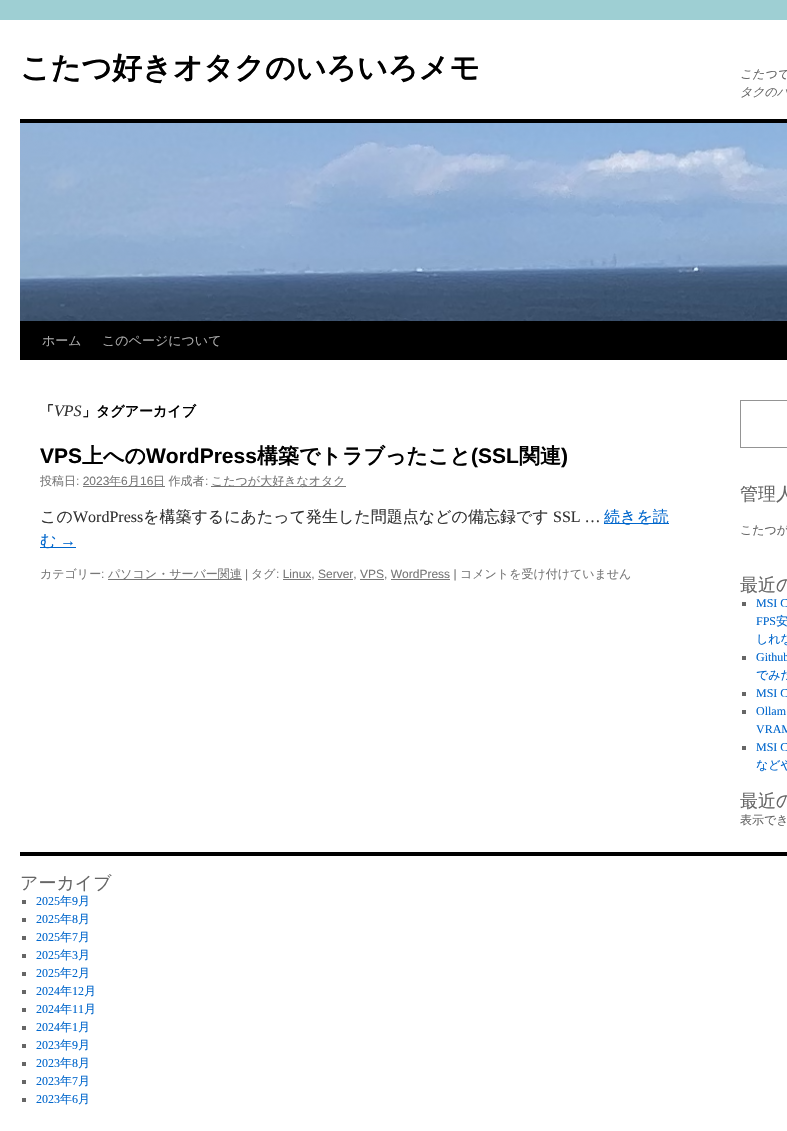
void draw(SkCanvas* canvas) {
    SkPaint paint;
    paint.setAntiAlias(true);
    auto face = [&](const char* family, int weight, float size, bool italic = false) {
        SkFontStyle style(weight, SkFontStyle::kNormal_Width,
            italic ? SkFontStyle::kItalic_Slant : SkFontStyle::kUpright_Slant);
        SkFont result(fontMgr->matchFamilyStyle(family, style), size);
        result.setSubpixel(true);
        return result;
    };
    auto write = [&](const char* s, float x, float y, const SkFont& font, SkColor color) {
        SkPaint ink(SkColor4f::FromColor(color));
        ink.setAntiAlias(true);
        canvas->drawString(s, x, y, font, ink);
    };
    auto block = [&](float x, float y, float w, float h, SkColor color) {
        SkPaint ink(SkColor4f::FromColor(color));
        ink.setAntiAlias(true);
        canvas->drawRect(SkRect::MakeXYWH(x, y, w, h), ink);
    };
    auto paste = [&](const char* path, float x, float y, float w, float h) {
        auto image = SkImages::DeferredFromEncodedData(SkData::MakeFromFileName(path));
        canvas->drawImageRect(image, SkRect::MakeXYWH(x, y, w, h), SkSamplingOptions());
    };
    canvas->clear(SkColorSetRGB(158, 207, 211));
    block(0, 20, 787, 1111, SK_ColorWHITE);
    auto kFont1 = face("WenQuanYi Zen Hei", 700, 30);
    write("こたつ好きオタクのいろいろメモ", 20, 78, kFont1, SK_ColorBLACK);
    auto kFont2 = face("WenQuanYi Zen Hei", 500, 12, true);
    write("こたつで", 740, 78, kFont2, SkColorSetRGB(102, 102, 102));
    write("タクのパ", 740, 96, kFont2, SkColorSetRGB(102, 102, 102));
    block(20, 119, 767, 4, SK_ColorBLACK);
    block(20, 321, 767, 39, SK_ColorBLACK);
    paste("pic1.png", 20, 123, 767, 198);
    auto kFont3 = face("WenQuanYi Zen Hei", 500, 13);
    write("ホーム", 42, 345, kFont3, SkColorSetRGB(170, 170, 170));
    write("このページについて", 102, 345, kFont3, SkColorSetRGB(170, 170, 170));
    auto kFont4 = face("WenQuanYi Zen Hei", 700, 14);
    write("「", 40, 416, kFont4, SK_ColorBLACK);
    auto kFont5 = face("Liberation Serif", 400, 16, true);
    write("VPS", 54, 416, kFont5, SkColorSetRGB(51, 51, 51));
    write("」タグアーカイブ", 82, 416, kFont4, SK_ColorBLACK);
    auto kFont6 = face("Liberation Sans", 700, 21);
    write("VPS", 40, 463, kFont6, SK_ColorBLACK);
    auto kFont7 = face("WenQuanYi Zen Hei", 700, 21);
    write("上への", 82, 463, kFont7, SK_ColorBLACK);
    write("WordPress", 146, 463, kFont6, SK_ColorBLACK);
    write("構築でトラブったこと", 257, 463, kFont7, SK_ColorBLACK);
    write("(SSL", 471, 463, kFont6, SK_ColorBLACK);
    write("関連", 519, 463, kFont7, SK_ColorBLACK);
    write(")", 561, 463, kFont6, SK_ColorBLACK);
    auto kFont8 = face("WenQuanYi Zen Hei", 500, 12);
    write("投稿日", 40, 485, kFont8, SkColorSetRGB(119, 119, 119));
    auto kFont9 = face("Liberation Sans", 400, 12);
    write(": 2023", 76, 485, kFont9, SkColorSetRGB(119, 119, 119));
    block(83, 486, 82, 1, SkColorSetRGB(119, 119, 119));
    write("年", 109, 485, kFont8, SkColorSetRGB(119, 119, 119));
    write("6", 121, 485, kFont9, SkColorSetRGB(119, 119, 119));
    write("月", 128, 485, kFont8, SkColorSetRGB(119, 119, 119));
    write("16", 140, 485, kFont9, SkColorSetRGB(119, 119, 119));
    write("日 作成者", 153, 485, kFont8, SkColorSetRGB(119, 119, 119));
    write(":", 205, 485, kFont9, SkColorSetRGB(119, 119, 119));
    block(211, 486, 135, 1, SkColorSetRGB(119, 119, 119));
    write("こたつが大好きなオタク", 211, 485, kFont8, SkColorSetRGB(119, 119, 119));
    auto kFont10 = face("WenQuanYi Zen Hei", 500, 16);
    write("この", 40, 522, kFont10, SkColorSetRGB(51, 51, 51));
    auto kFont11 = face("Liberation Serif", 400, 16);
    write("WordPress", 73, 522, kFont11, SkColorSetRGB(51, 51, 51));
    write("を構築するにあたって発生した問題点などの備忘録です", 143, 522, kFont10, SkColorSetRGB(51, 51, 51));
    write("SSL …", 553, 522, kFont11, SkColorSetRGB(51, 51, 51));
    block(604, 523, 65, 1, SkColorSetRGB(0, 102, 204));
    write("続きを読", 604, 522, kFont10, SkColorSetRGB(0, 102, 204));
    block(40, 547, 36, 1, SkColorSetRGB(0, 102, 204));
    write("む", 40, 546, kFont10, SkColorSetRGB(0, 102, 204));
    write("→", 60, 546, kFont11, SkColorSetRGB(0, 102, 204));
    write("カテゴリー", 40, 578, kFont8, SkColorSetRGB(119, 119, 119));
    write(":", 101, 578, kFont9, SkColorSetRGB(119, 119, 119));
    block(108, 579, 134, 1, SkColorSetRGB(119, 119, 119));
    write("パソコン・サーバー関連", 108, 578, kFont8, SkColorSetRGB(119, 119, 119));
    write("|", 245, 578, kFont9, SkColorSetRGB(119, 119, 119));
    write("タグ", 251, 578, kFont8, SkColorSetRGB(119, 119, 119));
    write(": Linux, Server, VPS, WordPress |", 276, 578, kFont9, SkColorSetRGB(119, 119, 119));
    block(283, 579, 28, 1, SkColorSetRGB(119, 119, 119));
    block(318, 579, 35, 1, SkColorSetRGB(119, 119, 119));
    block(360, 579, 24, 1, SkColorSetRGB(119, 119, 119));
    block(391, 579, 59, 1, SkColorSetRGB(119, 119, 119));
    write("コメントを受け付けていません", 460, 578, kFont8, SkColorSetRGB(119, 119, 119));
    paint.setStyle(SkPaint::kStroke_Style);
    paint.setStrokeWidth(1);
    paint.setColor(SkColorSetRGB(148, 148, 148));
    canvas->drawRect(SkRect::MakeXYWH(740.5f, 400.5f, 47, 47), paint);
    auto kFont12 = face("WenQuanYi Zen Hei", 500, 18);
    write("管理人", 740, 500, kFont12, SkColorSetRGB(102, 102, 102));
    write("こたつが", 740, 534, kFont8, SkColorSetRGB(102, 102, 102));
    write("最近の", 740, 591, kFont12, SkColorSetRGB(102, 102, 102));
    block(742, 602, 4, 4, SkColorSetRGB(102, 102, 102));
    auto kFont13 = face("Liberation Serif", 400, 12);
    write("MSI C", 756, 607, kFont13, SkColorSetRGB(0, 102, 204));
    write("FPS", 756, 625, kFont13, SkColorSetRGB(0, 102, 204));
    write("安", 776, 625, kFont8, SkColorSetRGB(0, 102, 204));
    write("しれな", 756, 643, kFont8, SkColorSetRGB(0, 102, 204));
    block(742, 656, 4, 4, SkColorSetRGB(102, 102, 102));
    write("Github", 756, 661, kFont13, SkColorSetRGB(0, 102, 204));
    write("でみた", 756, 679, kFont8, SkColorSetRGB(0, 102, 204));
    block(742, 692, 4, 4, SkColorSetRGB(102, 102, 102));
    write("MSI C", 756, 697, kFont13, SkColorSetRGB(0, 102, 204));
    block(742, 710, 4, 4, SkColorSetRGB(102, 102, 102));
    write("Ollam", 756, 715, kFont13, SkColorSetRGB(0, 102, 204));
    write("VRAM", 756, 733, kFont13, SkColorSetRGB(0, 102, 204));
    block(742, 746, 4, 4, SkColorSetRGB(102, 102, 102));
    write("MSI C", 756, 751, kFont13, SkColorSetRGB(0, 102, 204));
    write("などや", 756, 769, kFont8, SkColorSetRGB(0, 102, 204));
    write("最近の", 740, 807, kFont12, SkColorSetRGB(102, 102, 102));
    write("表示でき", 740, 824, kFont8, SkColorSetRGB(102, 102, 102));
    block(20, 852, 767, 4, SK_ColorBLACK);
    write("アーカイブ", 20, 889, kFont12, SkColorSetRGB(102, 102, 102));
    block(22, 900, 4, 4, SkColorSetRGB(102, 102, 102));
    write("2025", 36, 905, kFont13, SkColorSetRGB(0, 102, 204));
    write("年", 60, 905, kFont8, SkColorSetRGB(0, 102, 204));
    write("9", 72, 905, kFont13, SkColorSetRGB(0, 102, 204));
    write("月", 78, 905, kFont8, SkColorSetRGB(0, 102, 204));
    block(22, 918, 4, 4, SkColorSetRGB(102, 102, 102));
    write("2025", 36, 923, kFont13, SkColorSetRGB(0, 102, 204));
    write("年", 60, 923, kFont8, SkColorSetRGB(0, 102, 204));
    write("8", 72, 923, kFont13, SkColorSetRGB(0, 102, 204));
    write("月", 78, 923, kFont8, SkColorSetRGB(0, 102, 204));
    block(22, 936, 4, 4, SkColorSetRGB(102, 102, 102));
    write("2025", 36, 941, kFont13, SkColorSetRGB(0, 102, 204));
    write("年", 60, 941, kFont8, SkColorSetRGB(0, 102, 204));
    write("7", 72, 941, kFont13, SkColorSetRGB(0, 102, 204));
    write("月", 78, 941, kFont8, SkColorSetRGB(0, 102, 204));
    block(22, 954, 4, 4, SkColorSetRGB(102, 102, 102));
    write("2025", 36, 959, kFont13, SkColorSetRGB(0, 102, 204));
    write("年", 60, 959, kFont8, SkColorSetRGB(0, 102, 204));
    write("3", 72, 959, kFont13, SkColorSetRGB(0, 102, 204));
    write("月", 78, 959, kFont8, SkColorSetRGB(0, 102, 204));
    block(22, 972, 4, 4, SkColorSetRGB(102, 102, 102));
    write("2025", 36, 977, kFont13, SkColorSetRGB(0, 102, 204));
    write("年", 60, 977, kFont8, SkColorSetRGB(0, 102, 204));
    write("2", 72, 977, kFont13, SkColorSetRGB(0, 102, 204));
    write("月", 78, 977, kFont8, SkColorSetRGB(0, 102, 204));
    block(22, 990, 4, 4, SkColorSetRGB(102, 102, 102));
    write("2024", 36, 995, kFont13, SkColorSetRGB(0, 102, 204));
    write("年", 60, 995, kFont8, SkColorSetRGB(0, 102, 204));
    write("12", 72, 995, kFont13, SkColorSetRGB(0, 102, 204));
    write("月", 84, 995, kFont8, SkColorSetRGB(0, 102, 204));
    block(22, 1008, 4, 4, SkColorSetRGB(102, 102, 102));
    write("2024", 36, 1013, kFont13, SkColorSetRGB(0, 102, 204));
    write("年", 60, 1013, kFont8, SkColorSetRGB(0, 102, 204));
    write("11", 72, 1013, kFont13, SkColorSetRGB(0, 102, 204));
    write("月", 84, 1013, kFont8, SkColorSetRGB(0, 102, 204));
    block(22, 1026, 4, 4, SkColorSetRGB(102, 102, 102));
    write("2024", 36, 1031, kFont13, SkColorSetRGB(0, 102, 204));
    write("年", 60, 1031, kFont8, SkColorSetRGB(0, 102, 204));
    write("1", 72, 1031, kFont13, SkColorSetRGB(0, 102, 204));
    write("月", 78, 1031, kFont8, SkColorSetRGB(0, 102, 204));
    block(22, 1044, 4, 4, SkColorSetRGB(102, 102, 102));
    write("2023", 36, 1049, kFont13, SkColorSetRGB(0, 102, 204));
    write("年", 60, 1049, kFont8, SkColorSetRGB(0, 102, 204));
    write("9", 72, 1049, kFont13, SkColorSetRGB(0, 102, 204));
    write("月", 78, 1049, kFont8, SkColorSetRGB(0, 102, 204));
    block(22, 1062, 4, 4, SkColorSetRGB(102, 102, 102));
    write("2023", 36, 1067, kFont13, SkColorSetRGB(0, 102, 204));
    write("年", 60, 1067, kFont8, SkColorSetRGB(0, 102, 204));
    write("8", 72, 1067, kFont13, SkColorSetRGB(0, 102, 204));
    write("月", 78, 1067, kFont8, SkColorSetRGB(0, 102, 204));
    block(22, 1080, 4, 4, SkColorSetRGB(102, 102, 102));
    write("2023", 36, 1085, kFont13, SkColorSetRGB(0, 102, 204));
    write("年", 60, 1085, kFont8, SkColorSetRGB(0, 102, 204));
    write("7", 72, 1085, kFont13, SkColorSetRGB(0, 102, 204));
    write("月", 78, 1085, kFont8, SkColorSetRGB(0, 102, 204));
    block(22, 1098, 4, 4, SkColorSetRGB(102, 102, 102));
    write("2023", 36, 1103, kFont13, SkColorSetRGB(0, 102, 204));
    write("年", 60, 1103, kFont8, SkColorSetRGB(0, 102, 204));
    write("6", 72, 1103, kFont13, SkColorSetRGB(0, 102, 204));
    write("月", 78, 1103, kFont8, SkColorSetRGB(0, 102, 204));
}
